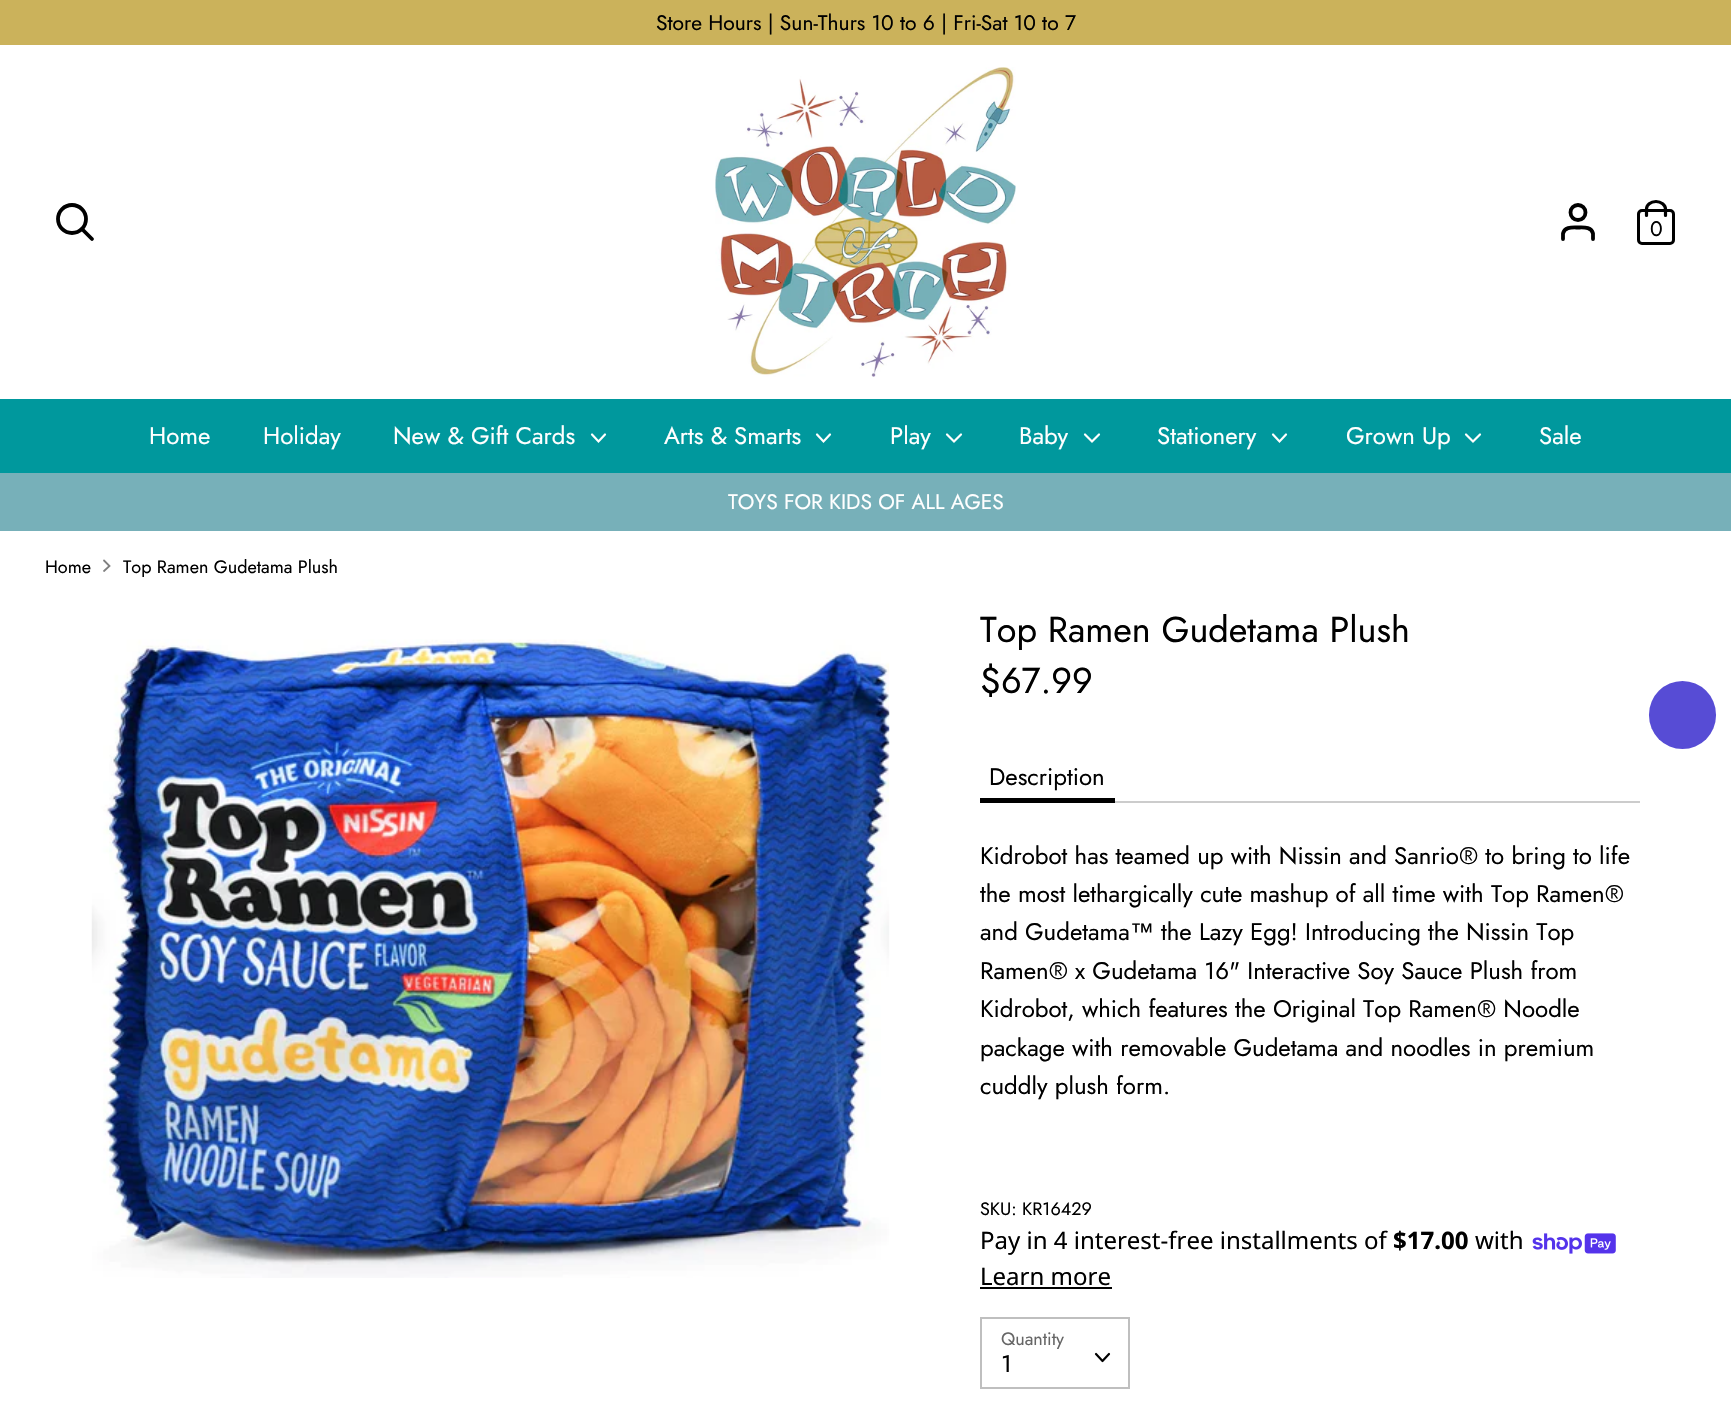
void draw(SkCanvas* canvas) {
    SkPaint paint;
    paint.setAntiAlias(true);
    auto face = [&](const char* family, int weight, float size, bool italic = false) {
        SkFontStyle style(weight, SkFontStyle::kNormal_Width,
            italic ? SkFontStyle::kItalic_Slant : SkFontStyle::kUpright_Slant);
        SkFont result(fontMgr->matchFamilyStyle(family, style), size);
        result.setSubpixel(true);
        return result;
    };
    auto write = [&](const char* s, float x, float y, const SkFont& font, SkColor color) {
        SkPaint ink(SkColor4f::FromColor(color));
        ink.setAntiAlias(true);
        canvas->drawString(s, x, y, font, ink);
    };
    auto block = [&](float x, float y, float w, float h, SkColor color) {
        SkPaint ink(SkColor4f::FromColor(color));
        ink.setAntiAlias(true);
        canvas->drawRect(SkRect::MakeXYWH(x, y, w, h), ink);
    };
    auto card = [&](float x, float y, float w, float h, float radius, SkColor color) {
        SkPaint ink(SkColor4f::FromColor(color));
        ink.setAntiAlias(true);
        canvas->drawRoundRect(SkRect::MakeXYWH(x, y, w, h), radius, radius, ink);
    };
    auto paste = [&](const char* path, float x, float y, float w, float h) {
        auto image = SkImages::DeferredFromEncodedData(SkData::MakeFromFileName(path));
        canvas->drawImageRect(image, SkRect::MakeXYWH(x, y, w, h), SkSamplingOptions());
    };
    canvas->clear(SK_ColorWHITE);
    block(0, 0, 1731, 45, SkColorSetRGB(203, 178, 91));
    auto kFont1 = face("Jost", 400, 21);
    write("Store Hours | Sun-Thurs 10 to 6 | Fri-Sat 10 to 7", 656, 30, kFont1, SK_ColorBLACK);
    paint.setStyle(SkPaint::kStroke_Style);
    paint.setStrokeWidth(3.8f);
    paint.setColor(SK_ColorBLACK);
    canvas->drawCircle(72, 219, 14, paint);
    paint.setStrokeCap(SkPaint::kRound_Cap);
    canvas->drawPath(SkPathBuilder().moveTo(92, 239).lineTo(82, 229).detach(), paint);
    paste("pic1.png", 715, 67, 301, 310);
    canvas->drawPath(SkPathBuilder().moveTo(1593, 239).lineTo(1593, 233.5f).cubicTo(1591.5f, 226.5f, 1583.5f, 227.5f, 1578, 227.5f).cubicTo(1572.5f, 227.5f, 1564.5f, 226.5f, 1563, 233.5f).lineTo(1563, 239).detach(), paint);
    paint.setStrokeCap(SkPaint::kButt_Cap);
    canvas->drawCircle(1578, 212.5f, 7.5f, paint);
    paint.setStrokeWidth(3);
    canvas->drawRoundRect(SkRect::MakeXYWH(1638.5f, 210.5f, 35, 33), 3.5f, 3.5f, paint);
    paint.setStrokeWidth(3.2f);
    paint.setStrokeCap(SkPaint::kRound_Cap);
    canvas->drawPath(SkPathBuilder().moveTo(1646.5f, 215.5f).lineTo(1646.5f, 209).cubicTo(1646.5f, 205, 1650.5f, 201.5f, 1656, 201.5f).cubicTo(1661, 201.5f, 1665.5f, 205, 1665.5f, 209).lineTo(1665.5f, 215.5f).detach(), paint);
    write("0", 1650, 236, kFont1, SK_ColorBLACK);
    block(0, 399, 1731, 74, SkColorSetRGB(0, 152, 157));
    auto kFont2 = face("Jost", 400, 24);
    write("Home", 149, 444, kFont2, SK_ColorWHITE);
    write("Holiday", 263, 444, kFont2, SK_ColorWHITE);
    write("New & Gift Cards", 393, 444, kFont2, SK_ColorWHITE);
    paint.setStrokeWidth(2.2f);
    paint.setColor(SK_ColorWHITE);
    canvas->drawPath(SkPathBuilder().moveTo(592, 434.5f).lineTo(598.5f, 441.5f).lineTo(605, 434.5f).detach(), paint);
    write("Arts & Smarts", 664, 444, kFont2, SK_ColorWHITE);
    canvas->drawPath(SkPathBuilder().moveTo(817, 434.5f).lineTo(823.5f, 441.5f).lineTo(830, 434.5f).detach(), paint);
    write("Play", 890, 444, kFont2, SK_ColorWHITE);
    canvas->drawPath(SkPathBuilder().moveTo(947, 434.5f).lineTo(954, 441.5f).lineTo(961, 434.5f).detach(), paint);
    write("Baby", 1019, 444, kFont2, SK_ColorWHITE);
    canvas->drawPath(SkPathBuilder().moveTo(1085, 434.5f).lineTo(1092, 441.5f).lineTo(1099, 434.5f).detach(), paint);
    write("Stationery", 1157, 444, kFont2, SK_ColorWHITE);
    canvas->drawPath(SkPathBuilder().moveTo(1273, 434.5f).lineTo(1279.5f, 441.5f).lineTo(1286, 434.5f).detach(), paint);
    write("Grown Up", 1346, 444, kFont2, SK_ColorWHITE);
    canvas->drawPath(SkPathBuilder().moveTo(1466, 434.5f).lineTo(1473, 441.5f).lineTo(1480, 434.5f).detach(), paint);
    write("Sale", 1539, 444, kFont2, SK_ColorWHITE);
    block(0, 473, 1731, 58, SkColorSetRGB(119, 176, 185));
    write("TOYS FOR KIDS OF ALL AGES", 728, 509, kFont1, SK_ColorWHITE);
    auto kFont3 = face("Jost", 400, 18);
    write("Home", 45, 573, kFont3, SK_ColorBLACK);
    paint.setStrokeWidth(1.8f);
    paint.setColor(SkColorSetRGB(128, 128, 128));
    canvas->drawPath(SkPathBuilder().moveTo(104, 571).lineTo(109.5f, 566).lineTo(104, 560.5f).detach(), paint);
    write("Top Ramen Gudetama Plush", 123, 573, kFont3, SK_ColorBLACK);
    paste("pic2.png", 91, 639, 799, 639);
    auto kFont4 = face("Jost", 400, 36);
    write("Top Ramen Gudetama Plush", 980, 642, kFont4, SK_ColorBLACK);
    write("$67.99", 980, 693, kFont4, SK_ColorBLACK);
    block(1115, 801, 525, 2, SkColorSetRGB(204, 204, 204));
    write("Description", 989, 785, kFont2, SK_ColorBLACK);
    block(980, 798, 135, 5, SK_ColorBLACK);
    write("Kidrobot has teamed up with Nissin and Sanrio® to bring to life", 980, 864, kFont2, SK_ColorBLACK);
    write("the most lethargically cute mashup of all time with Top Ramen®", 980, 902, kFont2, SK_ColorBLACK);
    write("and Gudetama", 980, 940, kFont2, SK_ColorBLACK);
    auto kFont5 = face("Liberation Sans", 400, 24);
    write("™", 1130, 940, kFont5, SK_ColorBLACK);
    write("the Lazy Egg! Introducing the Nissin Top", 1161, 940, kFont2, SK_ColorBLACK);
    write("Ramen® x Gudetama 16\" Interactive Soy Sauce Plush from", 980, 979, kFont2, SK_ColorBLACK);
    write("Kidrobot, which features the Original Top Ramen® Noodle", 980, 1017, kFont2, SK_ColorBLACK);
    write("package with removable Gudetama and noodles in premium", 980, 1056, kFont2, SK_ColorBLACK);
    write("cuddly plush form.", 980, 1094, kFont2, SK_ColorBLACK);
    write("SKU: KR16429", 980, 1215, kFont3, SK_ColorBLACK);
    auto kFont6 = face("Noto Sans", 400, 24);
    write("Pay in 4 interest-free installments of", 980, 1249, kFont6, SK_ColorBLACK);
    auto kFont7 = face("Noto Sans", 700, 24);
    write("$17.00", 1393, 1249, kFont7, SK_ColorBLACK);
    write("with", 1475, 1249, kFont6, SK_ColorBLACK);
    paste("pic3.png", 1532, 1233, 84, 21);
    write("Learn more", 980, 1285, kFont6, SK_ColorBLACK);
    block(980, 1287, 132, 2, SK_ColorBLACK);
    paint.setStrokeWidth(2);
    paint.setStrokeCap(SkPaint::kButt_Cap);
    paint.setColor(SkColorSetRGB(191, 191, 191));
    canvas->drawRect(SkRect::MakeXYWH(981, 1318, 148, 70), paint);
    write("Quantity", 1001, 1345, kFont3, SkColorSetRGB(102, 102, 102));
    write("1", 1001, 1372, kFont2, SK_ColorBLACK);
    paint.setStrokeWidth(2.2f);
    paint.setStrokeCap(SkPaint::kRound_Cap);
    paint.setStrokeJoin(SkPaint::kRound_Join);
    paint.setColor(SK_ColorBLACK);
    canvas->drawPath(SkPathBuilder().moveTo(1096, 1354).lineTo(1102.5f, 1361).lineTo(1109, 1354).detach(), paint);
    card(1649, 681, 67, 68, 33.5f, SkColorSetRGB(87, 76, 213));
}
